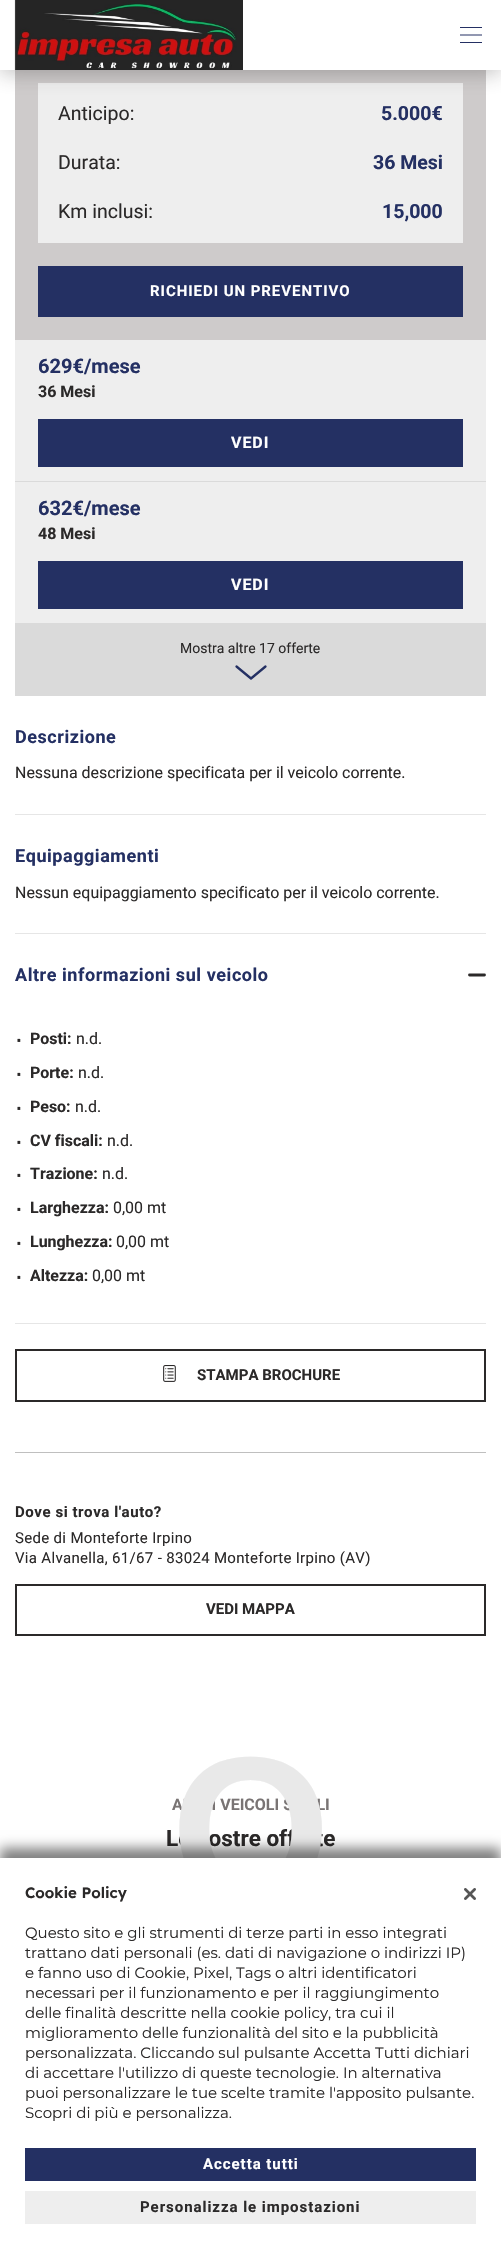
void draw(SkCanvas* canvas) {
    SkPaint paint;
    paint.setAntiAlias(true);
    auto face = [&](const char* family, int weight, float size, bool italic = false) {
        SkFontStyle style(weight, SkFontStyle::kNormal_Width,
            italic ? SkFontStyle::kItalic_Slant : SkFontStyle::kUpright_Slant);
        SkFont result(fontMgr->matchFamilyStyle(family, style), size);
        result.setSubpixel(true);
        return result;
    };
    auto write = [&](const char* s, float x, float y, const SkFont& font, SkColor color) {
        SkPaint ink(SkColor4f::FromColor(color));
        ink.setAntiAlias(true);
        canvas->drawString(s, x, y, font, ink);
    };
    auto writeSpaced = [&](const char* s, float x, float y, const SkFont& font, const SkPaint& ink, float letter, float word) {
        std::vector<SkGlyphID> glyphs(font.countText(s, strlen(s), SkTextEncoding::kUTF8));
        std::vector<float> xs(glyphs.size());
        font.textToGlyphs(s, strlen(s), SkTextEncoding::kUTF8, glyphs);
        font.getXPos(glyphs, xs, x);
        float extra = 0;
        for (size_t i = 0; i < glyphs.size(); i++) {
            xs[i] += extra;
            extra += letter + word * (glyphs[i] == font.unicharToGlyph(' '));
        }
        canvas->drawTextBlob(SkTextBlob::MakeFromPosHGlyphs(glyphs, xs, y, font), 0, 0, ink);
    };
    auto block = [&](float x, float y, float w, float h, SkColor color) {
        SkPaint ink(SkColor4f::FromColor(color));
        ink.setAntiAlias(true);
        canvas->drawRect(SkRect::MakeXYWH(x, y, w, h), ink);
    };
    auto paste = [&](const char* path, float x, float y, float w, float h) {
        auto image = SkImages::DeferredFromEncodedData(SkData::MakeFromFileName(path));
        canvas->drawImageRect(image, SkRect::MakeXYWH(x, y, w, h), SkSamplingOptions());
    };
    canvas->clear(SK_ColorWHITE);
    block(15, 70, 471, 270, SkColorSetRGB(206, 203, 203));
    block(38, 83, 425, 160, SkColorSetRGB(238, 238, 238));
    paint.setColor(SkColorSetARGB(77, 43, 41, 41));
    paint.setMaskFilter(SkMaskFilter::MakeBlur(kNormal_SkBlurStyle, 10));
    canvas->drawRect(SkRect::MakeXYWH(0, 3, 501, 70), paint);
    paint.setMaskFilter(nullptr);
    block(0, 0, 501, 70, SK_ColorWHITE);
    paste("pic1.png", 14, 0, 229, 70);
    block(460, 27, 22, 1, SkColorSetRGB(36, 48, 99));
    paint.setStyle(SkPaint::kStroke_Style);
    paint.setStrokeWidth(1);
    paint.setColor(SkColorSetRGB(36, 48, 99));
    canvas->drawPath(SkPathBuilder().moveTo(460, 35).lineTo(482, 35).detach(), paint);
    block(460, 42, 22, 1, SkColorSetRGB(36, 48, 99));
    auto kFont1 = face("Roboto", 400, 19.5f);
    write("Anticipo:", 58, 120, kFont1, SkColorSetRGB(43, 41, 41));
    auto kFont2 = face("Roboto", 700, 19.5f);
    write("5.000€", 381, 120, kFont2, SkColorSetRGB(36, 48, 99));
    write("Durata:", 58, 169, kFont1, SkColorSetRGB(43, 41, 41));
    write("36 Mesi", 373, 169, kFont2, SkColorSetRGB(36, 48, 99));
    write("Km inclusi:", 58, 218, kFont1, SkColorSetRGB(43, 41, 41));
    write("15,000", 382, 218, kFont2, SkColorSetRGB(36, 48, 99));
    block(38, 266, 425, 51, SkColorSetRGB(36, 48, 99));
    auto kFont3 = face("Roboto", 700, 15);
    paint.setStyle(SkPaint::kFill_Style);
    paint.setColor(SK_ColorWHITE);
    writeSpaced("RICHIEDI UN PREVENTIVO", 150, 296, kFont3, paint, 0.95f, 0);
    block(15, 340, 471, 141, SkColorSetRGB(238, 238, 238));
    block(15, 481, 471, 1, SkColorSetRGB(218, 218, 218));
    auto kFont4 = face("Roboto", 700, 20);
    write("629€/mese", 38, 373, kFont4, SkColorSetRGB(36, 48, 99));
    auto kFont5 = face("Roboto", 700, 16);
    write("36 Mesi", 38, 397, kFont5, SkColorSetRGB(43, 41, 41));
    block(38, 419, 425, 48, SkColorSetRGB(36, 48, 99));
    writeSpaced("VEDI", 231, 448, kFont5, paint, 0.95f, 0);
    block(15, 482, 471, 141, SkColorSetRGB(238, 238, 238));
    write("632€/mese", 38, 515, kFont4, SkColorSetRGB(36, 48, 99));
    write("48 Mesi", 38, 539, kFont5, SkColorSetRGB(43, 41, 41));
    block(38, 561, 425, 48, SkColorSetRGB(36, 48, 99));
    writeSpaced("VEDI", 231, 590, kFont5, paint, 0.95f, 0);
    block(15, 623, 471, 73, SkColorSetRGB(218, 218, 218));
    auto kFont6 = face("Roboto", 400, 14);
    write("Mostra altre 17 offerte", 180, 653, kFont6, SkColorSetRGB(43, 41, 41));
    paint.setStyle(SkPaint::kStroke_Style);
    paint.setStrokeWidth(2.3f);
    paint.setStrokeCap(SkPaint::kRound_Cap);
    paint.setColor(SkColorSetRGB(36, 48, 99));
    canvas->drawPath(SkPathBuilder().moveTo(236.5f, 666.5f).lineTo(251, 678.5f).moveTo(265.5f, 666.5f).lineTo(251, 678.5f).detach(), paint);
    block(15, 814, 471, 1, SkColorSetRGB(230, 230, 230));
    auto kFont7 = face("Roboto", 700, 18);
    paint.setStyle(SkPaint::kFill_Style);
    writeSpaced("Descrizione", 15, 743, kFont7, paint, 0.55f, 0);
    auto kFont8 = face("Roboto", 400, 15.95f);
    write("Nessuna descrizione specificata per il veicolo corrente.", 15, 778, kFont8, SkColorSetRGB(43, 41, 41));
    block(15, 933, 471, 1, SkColorSetRGB(230, 230, 230));
    writeSpaced("Equipaggiamenti", 15, 862, kFont7, paint, 0.55f, 0);
    write("Nessun equipaggiamento specificato per il veicolo corrente.", 15, 898, kFont8, SkColorSetRGB(43, 41, 41));
    block(15, 1323, 471, 1, SkColorSetRGB(230, 230, 230));
    writeSpaced("Altre informazioni sul veicolo", 15, 981, kFont7, paint, 0.55f, 0);
    paint.setStyle(SkPaint::kStroke_Style);
    paint.setStrokeWidth(2.8f);
    paint.setColor(SkColorSetRGB(43, 41, 41));
    canvas->drawPath(SkPathBuilder().moveTo(469.5f, 975).lineTo(484.5f, 975).detach(), paint);
    auto kFont9 = face("Liberation Sans", 400, 28);
    write("∙", 15, 1048, kFont9, SkColorSetRGB(43, 41, 41));
    auto kFont10 = face("Roboto", 700, 15.95f);
    write("Posti:", 30, 1044, kFont10, SkColorSetRGB(43, 41, 41));
    write("n.d.", 76, 1044, kFont8, SkColorSetRGB(43, 41, 41));
    write("∙", 15, 1082, kFont9, SkColorSetRGB(43, 41, 41));
    write("Porte:", 30, 1078, kFont10, SkColorSetRGB(43, 41, 41));
    write("n.d.", 78, 1078, kFont8, SkColorSetRGB(43, 41, 41));
    write("∙", 15, 1116, kFont9, SkColorSetRGB(43, 41, 41));
    write("Peso:", 30, 1112, kFont10, SkColorSetRGB(43, 41, 41));
    write("n.d.", 75, 1112, kFont8, SkColorSetRGB(43, 41, 41));
    write("∙", 15, 1150, kFont9, SkColorSetRGB(43, 41, 41));
    write("CV fiscali:", 30, 1146, kFont10, SkColorSetRGB(43, 41, 41));
    write("n.d.", 107, 1146, kFont8, SkColorSetRGB(43, 41, 41));
    write("∙", 15, 1183, kFont9, SkColorSetRGB(43, 41, 41));
    write("Trazione:", 30, 1179, kFont10, SkColorSetRGB(43, 41, 41));
    write("n.d.", 102, 1179, kFont8, SkColorSetRGB(43, 41, 41));
    write("∙", 15, 1217, kFont9, SkColorSetRGB(43, 41, 41));
    write("Larghezza:", 30, 1213, kFont10, SkColorSetRGB(43, 41, 41));
    write("0,00 mt", 113, 1213, kFont8, SkColorSetRGB(43, 41, 41));
    write("∙", 15, 1251, kFont9, SkColorSetRGB(43, 41, 41));
    write("Lunghezza:", 30, 1247, kFont10, SkColorSetRGB(43, 41, 41));
    write("0,00 mt", 116, 1247, kFont8, SkColorSetRGB(43, 41, 41));
    write("∙", 15, 1285, kFont9, SkColorSetRGB(43, 41, 41));
    write("Altezza:", 30, 1281, kFont10, SkColorSetRGB(43, 41, 41));
    write("0,00 mt", 92, 1281, kFont8, SkColorSetRGB(43, 41, 41));
    paint.setStrokeWidth(2);
    paint.setStrokeCap(SkPaint::kButt_Cap);
    canvas->drawRect(SkRect::MakeXYWH(16, 1350, 469, 51), paint);
    paste("pic2.png", 163, 1365, 13, 17);
    write("STAMPA BROCHURE", 197, 1380, kFont3, SkColorSetRGB(43, 41, 41));
    block(15, 1452, 471, 1, SkColorSetRGB(191, 191, 191));
    paint.setStyle(SkPaint::kFill_Style);
    writeSpaced("Dove si trova l'auto?", 15, 1517, kFont3, paint, 0.55f, 0);
    auto kFont11 = face("Roboto", 400, 15);
    writeSpaced("Sede di Monteforte Irpino", 15, 1543, kFont11, paint, 0.32f, 0);
    writeSpaced("Via Alvanella, 61/67 - 83024 Monteforte Irpino (AV)", 15, 1563, kFont11, paint, 0.32f, 0);
    paint.setStyle(SkPaint::kStroke_Style);
    canvas->drawRect(SkRect::MakeXYWH(16, 1585, 469, 50), paint);
    write("VEDI MAPPA", 206, 1614, kFont3, SkColorSetRGB(43, 41, 41));
    write("ALTRI VEICOLI SIMILI", 172, 1810, kFont5, SkColorSetRGB(121, 116, 116));
    auto kFont12 = face("Roboto", 700, 22.5f);
    write("Le nostre offerte", 166, 1846, kFont12, SkColorSetRGB(43, 41, 41));
    auto kFont13 = face("Liberation Sans", 700, 205);
    write("O", 171, 1900, kFont13, SkColorSetRGB(233, 233, 233));
    paint.setStyle(SkPaint::kFill_Style);
    paint.setColor(SkColorSetARGB(128, 0, 0, 0));
    paint.setMaskFilter(SkMaskFilter::MakeBlur(kNormal_SkBlurStyle, 6));
    canvas->drawRect(SkRect::MakeXYWH(0, 1848, 501, 401), paint);
    paint.setMaskFilter(nullptr);
    block(0, 1858, 501, 401, SK_ColorWHITE);
    auto kFont14 = face("Lexend", 600, 15);
    write("Cookie Policy", 25, 1898, kFont14, SkColorSetRGB(43, 41, 41));
    auto kFont15 = face("Montserrat", 400, 15);
    write("Questo sito e gli strumenti di terze parti in esso integrati", 25, 1938, kFont15, SkColorSetRGB(43, 41, 41));
    write("trattano dati personali (es. dati di navigazione o indirizzi IP)", 25, 1958, kFont15, SkColorSetRGB(43, 41, 41));
    write("e fanno uso di Cookie, Pixel, Tags o altri identificatori", 25, 1978, kFont15, SkColorSetRGB(43, 41, 41));
    write("necessari per il funzionamento e per il raggiungimento", 25, 1998, kFont15, SkColorSetRGB(43, 41, 41));
    write("delle finalità descritte nella cookie policy, tra cui il", 25, 2018, kFont15, SkColorSetRGB(43, 41, 41));
    write("miglioramento delle funzionalità del sito e la pubblicità", 25, 2038, kFont15, SkColorSetRGB(43, 41, 41));
    write("personalizzata. Cliccando sul pulsante Accetta Tutti dichiari", 25, 2058, kFont15, SkColorSetRGB(43, 41, 41));
    write("di accettare l'utilizzo di queste tecnologie. In alternativa", 25, 2078, kFont15, SkColorSetRGB(43, 41, 41));
    write("puoi personalizzare le tue scelte tramite l'apposito pulsante.", 25, 2098, kFont15, SkColorSetRGB(43, 41, 41));
    write("Scopri di più e personalizza.", 25, 2118, kFont15, SkColorSetRGB(43, 41, 41));
    paste("pic3.png", 464, 1888, 12, 12);
    block(25, 2148, 451, 33, SkColorSetRGB(36, 48, 99));
    paint.setColor(SK_ColorWHITE);
    writeSpaced("Accetta tutti", 203, 2169, kFont3, paint, 0.95f, 0);
    block(25, 2191, 451, 33, SkColorSetRGB(238, 238, 238));
    paint.setColor(SkColorSetRGB(43, 41, 41));
    writeSpaced("Personalizza le impostazioni", 140, 2212, kFont3, paint, 0.95f, 0);
}
